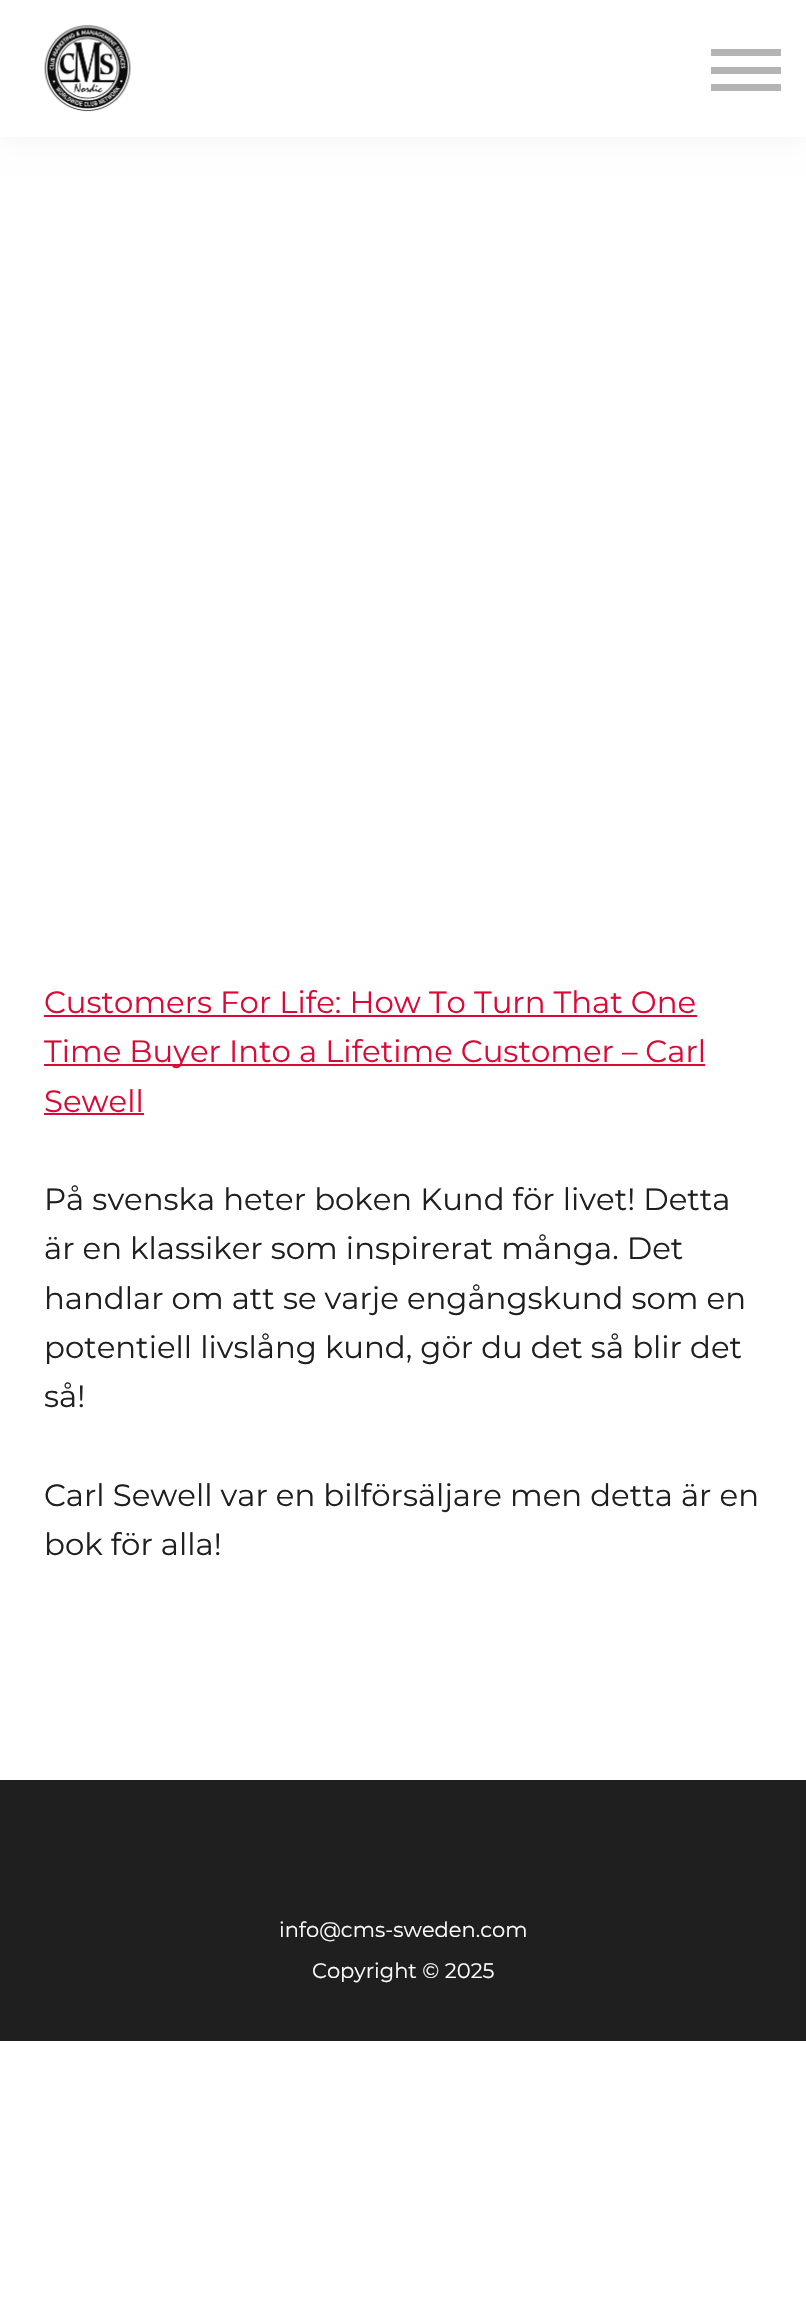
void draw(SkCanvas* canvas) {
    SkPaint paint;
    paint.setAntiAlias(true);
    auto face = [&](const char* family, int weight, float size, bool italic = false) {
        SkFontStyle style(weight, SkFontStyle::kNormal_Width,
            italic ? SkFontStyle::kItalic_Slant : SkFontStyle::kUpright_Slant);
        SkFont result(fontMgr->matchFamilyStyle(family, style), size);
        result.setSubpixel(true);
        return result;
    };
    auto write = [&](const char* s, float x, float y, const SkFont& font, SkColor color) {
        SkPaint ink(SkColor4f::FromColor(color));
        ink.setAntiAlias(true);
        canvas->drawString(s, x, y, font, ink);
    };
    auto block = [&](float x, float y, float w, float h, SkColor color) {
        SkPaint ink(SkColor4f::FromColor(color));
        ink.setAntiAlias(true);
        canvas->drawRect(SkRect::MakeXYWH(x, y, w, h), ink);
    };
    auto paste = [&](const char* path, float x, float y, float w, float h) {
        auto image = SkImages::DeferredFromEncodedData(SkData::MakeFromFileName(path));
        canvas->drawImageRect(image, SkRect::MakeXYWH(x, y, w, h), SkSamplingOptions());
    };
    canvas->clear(SK_ColorWHITE);
    paint.setColor(SkColorSetARGB(13, 0, 0, 0));
    paint.setMaskFilter(SkMaskFilter::MakeBlur(kNormal_SkBlurStyle, 13));
    canvas->drawRect(SkRect::MakeXYWH(0, 0, 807, 137), paint);
    paint.setMaskFilter(nullptr);
    block(0, 0, 806, 137, SK_ColorWHITE);
    paste("pic1.png", 44, 25, 87, 87);
    block(711, 84, 70, 7, SkColorSetRGB(180, 180, 180));
    block(711, 49, 70, 7, SkColorSetRGB(180, 180, 180));
    block(711, 67, 70, 7, SkColorSetRGB(180, 180, 180));
    auto kFont1 = face("Montserrat", 400, 30.8f);
    write("Customers For Life: How To Turn That One", 44, 1013, kFont1, SkColorSetRGB(218, 10, 54));
    block(44, 1015, 653, 2, SkColorSetRGB(218, 10, 54));
    block(44, 1064, 661, 2, SkColorSetRGB(218, 10, 54));
    write("Time Buyer Into a Lifetime Customer – Carl", 44, 1062, kFont1, SkColorSetRGB(218, 10, 54));
    write("Sewell", 44, 1112, kFont1, SkColorSetRGB(218, 10, 54));
    block(44, 1113, 100, 2, SkColorSetRGB(218, 10, 54));
    write("På svenska heter boken Kund för livet! Detta", 44, 1210, kFont1, SkColorSetRGB(31, 31, 31));
    write("är en klassiker som inspirerat många. Det", 44, 1259, kFont1, SkColorSetRGB(31, 31, 31));
    write("handlar om att se varje engångskund som en", 44, 1309, kFont1, SkColorSetRGB(31, 31, 31));
    write("potentiell livslång kund, gör du det så blir det", 44, 1358, kFont1, SkColorSetRGB(31, 31, 31));
    write("så!", 44, 1407, kFont1, SkColorSetRGB(31, 31, 31));
    write("Carl Sewell var en bilförsäljare men detta är en", 44, 1506, kFont1, SkColorSetRGB(31, 31, 31));
    write("bok för alla!", 44, 1555, kFont1, SkColorSetRGB(31, 31, 31));
    block(0, 1780, 806, 261, SkColorSetRGB(31, 31, 31));
    auto kFont2 = face("Montserrat", 400, 21);
    write("info@cms-sweden.com", 279, 1937, kFont2, SK_ColorWHITE);
    write("Copyright © 2025", 312, 1978, kFont2, SK_ColorWHITE);
}
